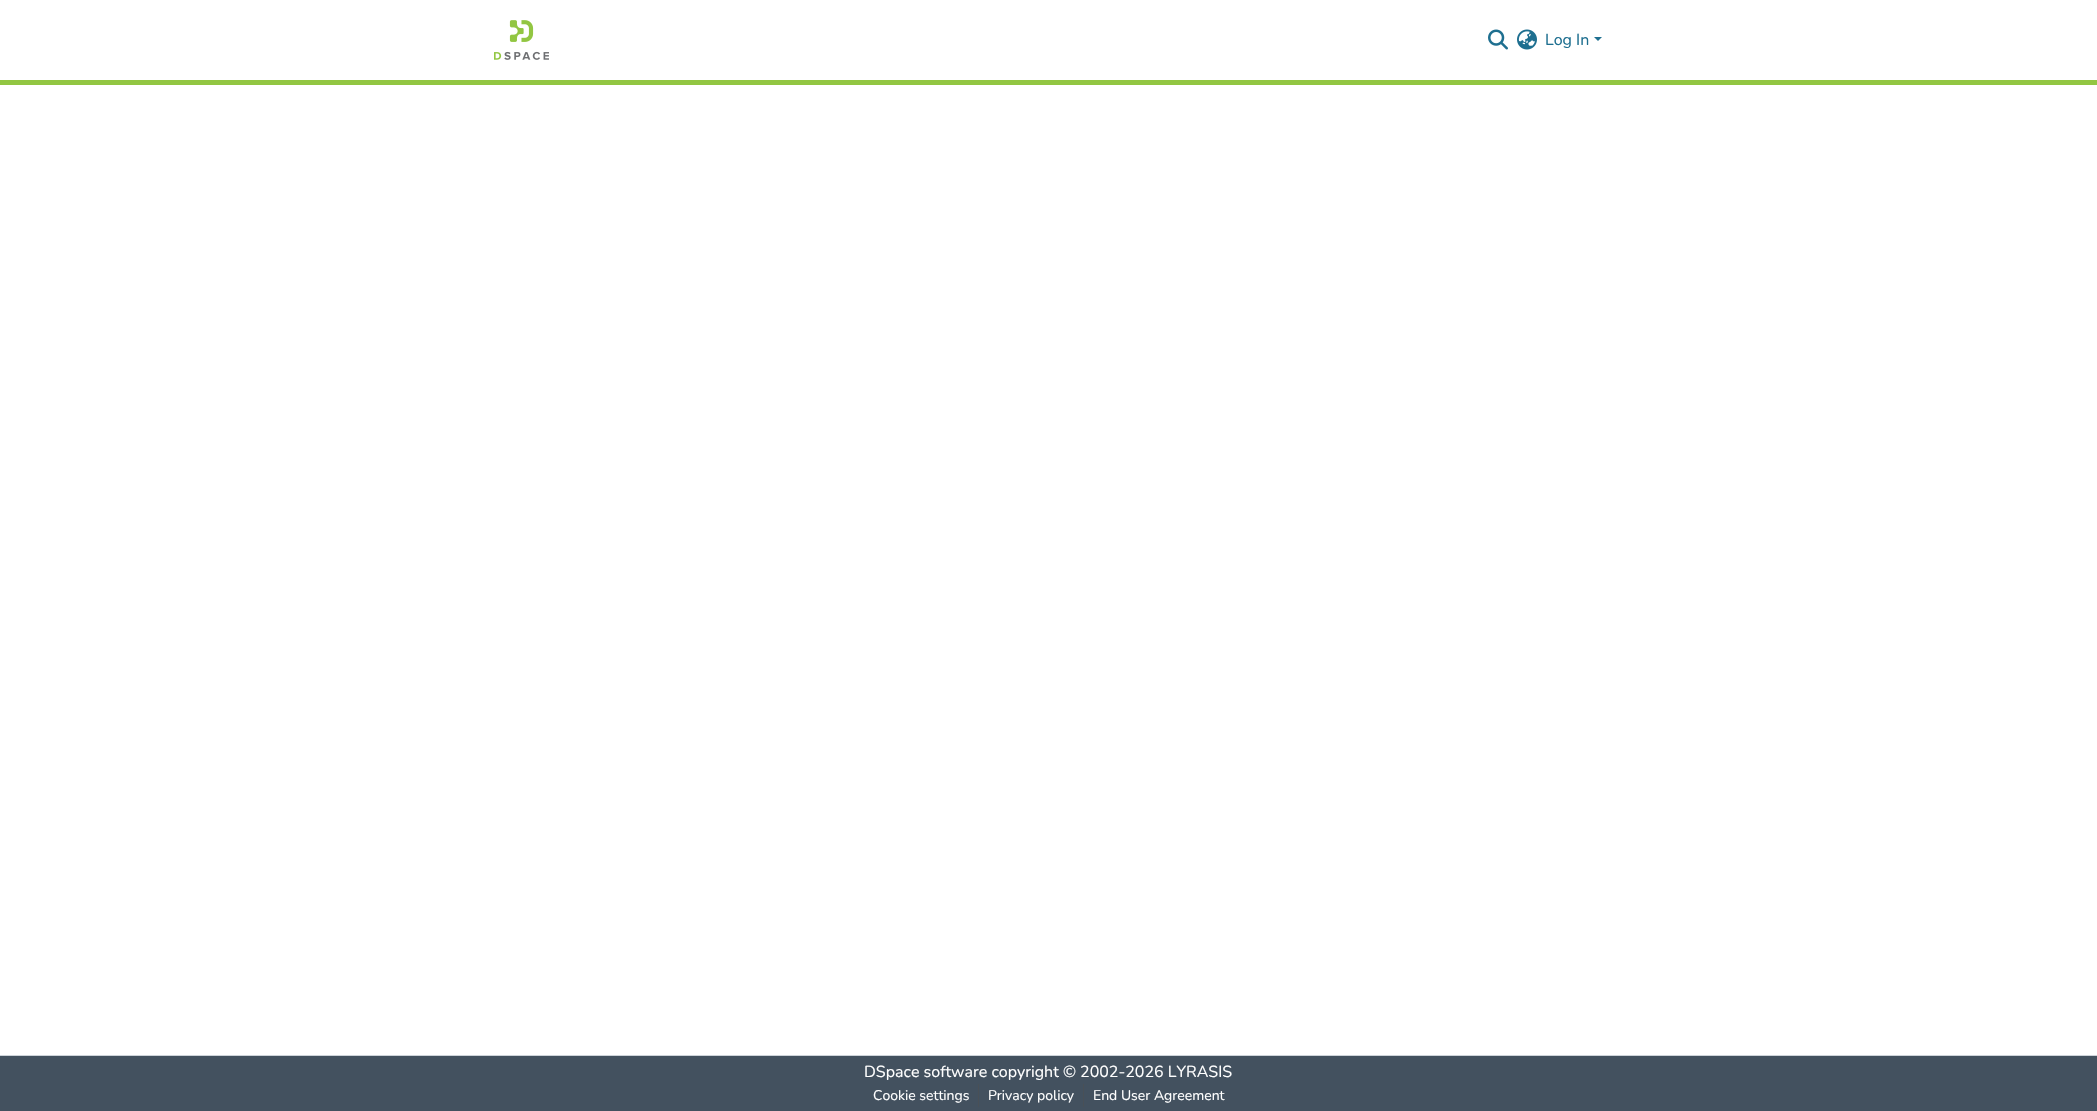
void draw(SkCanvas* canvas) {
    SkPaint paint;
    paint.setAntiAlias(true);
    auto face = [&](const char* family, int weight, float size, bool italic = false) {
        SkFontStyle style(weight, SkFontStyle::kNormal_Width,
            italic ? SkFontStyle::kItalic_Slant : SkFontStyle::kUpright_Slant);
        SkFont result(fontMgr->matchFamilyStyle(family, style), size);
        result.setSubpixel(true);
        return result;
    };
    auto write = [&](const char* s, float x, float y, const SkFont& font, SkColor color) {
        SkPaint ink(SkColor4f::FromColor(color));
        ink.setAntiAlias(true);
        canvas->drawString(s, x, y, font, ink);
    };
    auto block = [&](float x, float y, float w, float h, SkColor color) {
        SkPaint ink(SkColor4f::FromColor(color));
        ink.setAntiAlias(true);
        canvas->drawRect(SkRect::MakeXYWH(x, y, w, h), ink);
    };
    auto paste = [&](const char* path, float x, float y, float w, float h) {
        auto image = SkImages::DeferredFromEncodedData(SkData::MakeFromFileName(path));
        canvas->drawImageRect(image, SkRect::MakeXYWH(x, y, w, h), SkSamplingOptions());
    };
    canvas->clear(SK_ColorWHITE);
    block(0, 80, 2097, 5, SkColorSetRGB(146, 198, 66));
    paste("pic1.png", 494, 20, 55, 40);
    paste("pic2.png", 1488, 29, 20, 21);
    paste("pic3.png", 1517, 29, 20, 21);
    auto kFont1 = face("Nunito", 400, 16);
    write("Log In", 1545, 45, kFont1, SkColorSetRGB(30, 111, 144));
    paint.setColor(SkColorSetRGB(30, 111, 144));
    canvas->drawPath(SkPathBuilder().moveTo(1594, 37).lineTo(1602, 37).lineTo(1598, 41).close().detach(), paint);
    block(0, 1056, 2097, 55, SkColorSetRGB(67, 81, 95));
    block(0, 1055, 2097, 1, SkColorSetRGB(206, 212, 218));
    write("DSpace software copyright © 2002-2026 LYRASIS", 864, 1077, kFont1, SK_ColorWHITE);
    auto kFont2 = face("Nunito", 400, 14);
    write("Cookie settings", 873, 1100, kFont2, SK_ColorWHITE);
    block(978, 1084, 1, 23, SkColorSetRGB(73, 80, 87));
    write("Privacy policy", 988, 1100, kFont2, SK_ColorWHITE);
    block(1083, 1084, 1, 23, SkColorSetRGB(73, 80, 87));
    write("End User Agreement", 1093, 1100, kFont2, SK_ColorWHITE);
}
